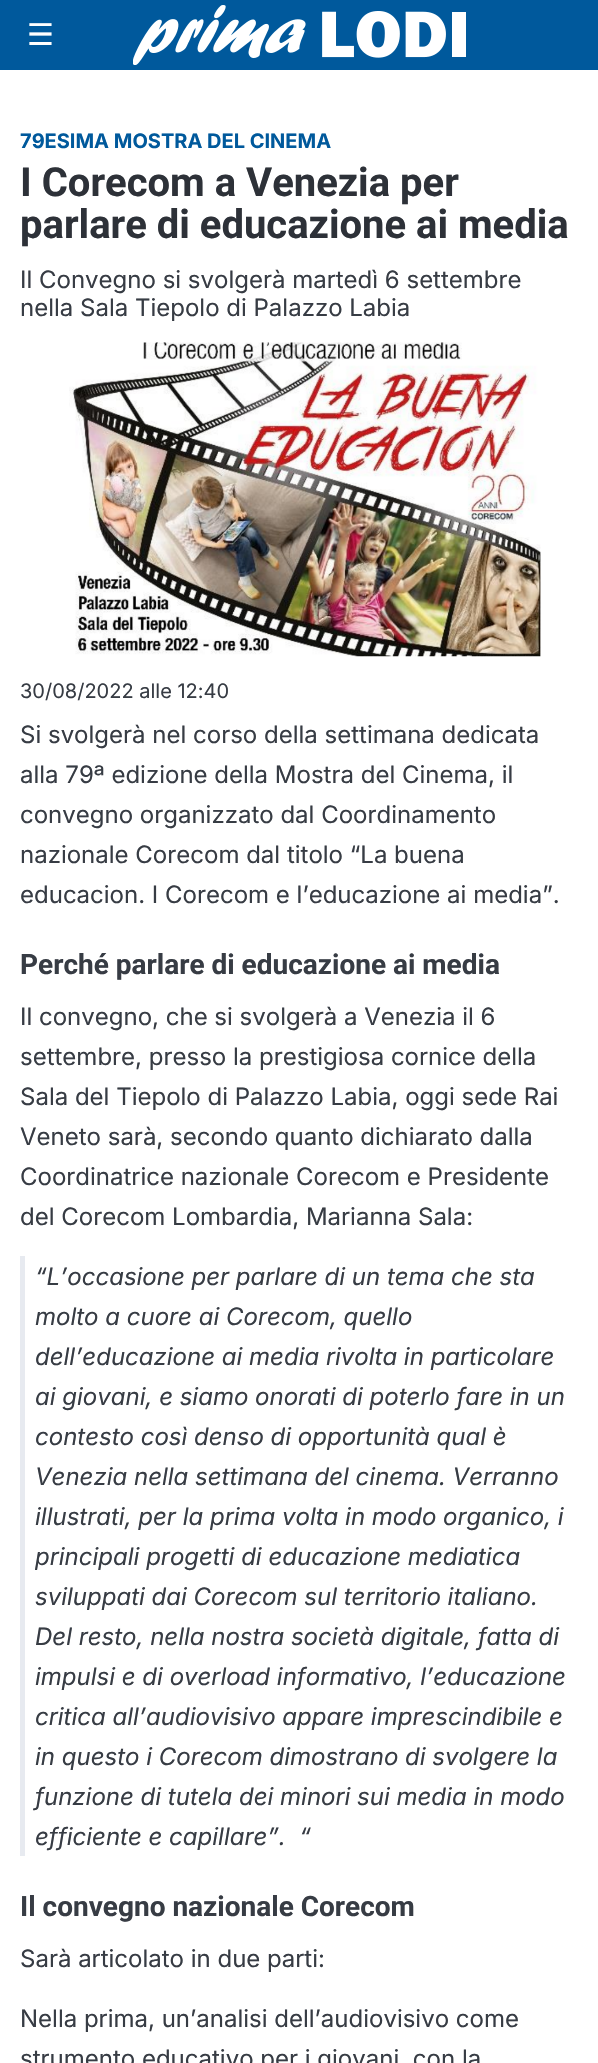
void draw(SkCanvas* canvas) {
    SkPaint paint;
    paint.setAntiAlias(true);
    auto face = [&](const char* family, int weight, float size, bool italic = false) {
        SkFontStyle style(weight, SkFontStyle::kNormal_Width,
            italic ? SkFontStyle::kItalic_Slant : SkFontStyle::kUpright_Slant);
        SkFont result(fontMgr->matchFamilyStyle(family, style), size);
        result.setSubpixel(true);
        return result;
    };
    auto write = [&](const char* s, float x, float y, const SkFont& font, SkColor color) {
        SkPaint ink(SkColor4f::FromColor(color));
        ink.setAntiAlias(true);
        canvas->drawString(s, x, y, font, ink);
    };
    auto block = [&](float x, float y, float w, float h, SkColor color) {
        SkPaint ink(SkColor4f::FromColor(color));
        ink.setAntiAlias(true);
        canvas->drawRect(SkRect::MakeXYWH(x, y, w, h), ink);
    };
    auto paste = [&](const char* path, float x, float y, float w, float h) {
        auto image = SkImages::DeferredFromEncodedData(SkData::MakeFromFileName(path));
        canvas->drawImageRect(image, SkRect::MakeXYWH(x, y, w, h), SkSamplingOptions());
    };
    canvas->clear(SK_ColorWHITE);
    block(0, 0, 598, 70, SkColorSetRGB(0, 89, 156));
    auto kFont1 = face("DejaVu Sans", 400, 30);
    write("☰", 27, 45, kFont1, SK_ColorWHITE);
    paste("pic1.png", 133, 5, 333, 60);
    auto kFont2 = face("Inter", 700, 20);
    write("79ESIMA MOSTRA DEL CINEMA", 20, 148, kFont2, SkColorSetRGB(0, 89, 156));
    auto kFont3 = face("Roboto", 700, 40);
    write("I Corecom a Venezia per", 20, 196, kFont3, SkColorSetRGB(45, 49, 56));
    write("parlare di educazione ai media", 20, 238, kFont3, SkColorSetRGB(45, 49, 56));
    auto kFont4 = face("Inter", 400, 24);
    write("Il Convegno si svolgerà martedì 6 settembre", 20, 288, kFont4, SkColorSetRGB(55, 60, 68));
    write("nella Sala Tiepolo di Palazzo Labia", 20, 316, kFont4, SkColorSetRGB(55, 60, 68));
    paste("pic2.png", 69, 342, 472, 315);
    auto kFont5 = face("Inter", 400, 20);
    write("30/08/2022 alle 12:40", 20, 698, kFont5, SkColorSetRGB(55, 60, 68));
    write("Si svolgerà nel corso della settimana dedicata", 20, 743, kFont4, SkColorSetRGB(55, 60, 68));
    write("alla 79ª edizione della Mostra del Cinema, il", 20, 783, kFont4, SkColorSetRGB(55, 60, 68));
    write("convegno organizzato dal Coordinamento", 20, 823, kFont4, SkColorSetRGB(55, 60, 68));
    write("nazionale Corecom dal titolo “La buena", 20, 863, kFont4, SkColorSetRGB(55, 60, 68));
    write("educacion. I Corecom e l’educazione ai media”.", 20, 903, kFont4, SkColorSetRGB(55, 60, 68));
    auto kFont6 = face("Roboto", 700, 28);
    write("Perché parlare di educazione ai media", 20, 974, kFont6, SkColorSetRGB(55, 60, 68));
    write("Il convegno, che si svolgerà a Venezia il 6", 20, 1025, kFont4, SkColorSetRGB(55, 60, 68));
    write("settembre, presso la prestigiosa cornice della", 20, 1065, kFont4, SkColorSetRGB(55, 60, 68));
    write("Sala del Tiepolo di Palazzo Labia, oggi sede Rai", 20, 1105, kFont4, SkColorSetRGB(55, 60, 68));
    write("Veneto sarà, secondo quanto dichiarato dalla", 20, 1145, kFont4, SkColorSetRGB(55, 60, 68));
    write("Coordinatrice nazionale Corecom e Presidente", 20, 1185, kFont4, SkColorSetRGB(55, 60, 68));
    write("del Corecom Lombardia, Marianna Sala:", 20, 1225, kFont4, SkColorSetRGB(55, 60, 68));
    block(20, 1256, 5, 600, SkColorSetRGB(231, 234, 240));
    auto kFont7 = face("Inter", 400, 24, true);
    write("“L’occasione per parlare di un tema che sta", 35, 1285, kFont7, SkColorSetRGB(55, 60, 68));
    write("molto a cuore ai Corecom, quello", 35, 1325, kFont7, SkColorSetRGB(55, 60, 68));
    write("dell’educazione ai media rivolta in particolare", 35, 1365, kFont7, SkColorSetRGB(55, 60, 68));
    write("ai giovani, e siamo onorati di poterlo fare in un", 35, 1405, kFont7, SkColorSetRGB(55, 60, 68));
    write("contesto così denso di opportunità qual è", 35, 1445, kFont7, SkColorSetRGB(55, 60, 68));
    write("Venezia nella settimana del cinema. Verranno", 35, 1485, kFont7, SkColorSetRGB(55, 60, 68));
    write("illustrati, per la prima volta in modo organico, i", 35, 1525, kFont7, SkColorSetRGB(55, 60, 68));
    write("principali progetti di educazione mediatica", 35, 1565, kFont7, SkColorSetRGB(55, 60, 68));
    write("sviluppati dai Corecom sul territorio italiano.", 35, 1605, kFont7, SkColorSetRGB(55, 60, 68));
    write("Del resto, nella nostra società digitale, fatta di", 35, 1645, kFont7, SkColorSetRGB(55, 60, 68));
    write("impulsi e di overload informativo, l’educazione", 35, 1685, kFont7, SkColorSetRGB(55, 60, 68));
    write("critica all’audiovisivo appare imprescindibile e", 35, 1725, kFont7, SkColorSetRGB(55, 60, 68));
    write("in questo i Corecom dimostrano di svolgere la", 35, 1765, kFont7, SkColorSetRGB(55, 60, 68));
    write("funzione di tutela dei minori sui media in modo", 35, 1805, kFont7, SkColorSetRGB(55, 60, 68));
    write("efficiente e capillare”.  “", 35, 1845, kFont7, SkColorSetRGB(55, 60, 68));
    write("Il convegno nazionale Corecom", 20, 1916, kFont6, SkColorSetRGB(55, 60, 68));
    write("Sarà articolato in due parti:", 20, 1967, kFont4, SkColorSetRGB(55, 60, 68));
    write("Nella prima, un’analisi dell’audiovisivo come", 20, 2027, kFont4, SkColorSetRGB(55, 60, 68));
    write("strumento educativo per i giovani, con la", 20, 2067, kFont4, SkColorSetRGB(55, 60, 68));
}
